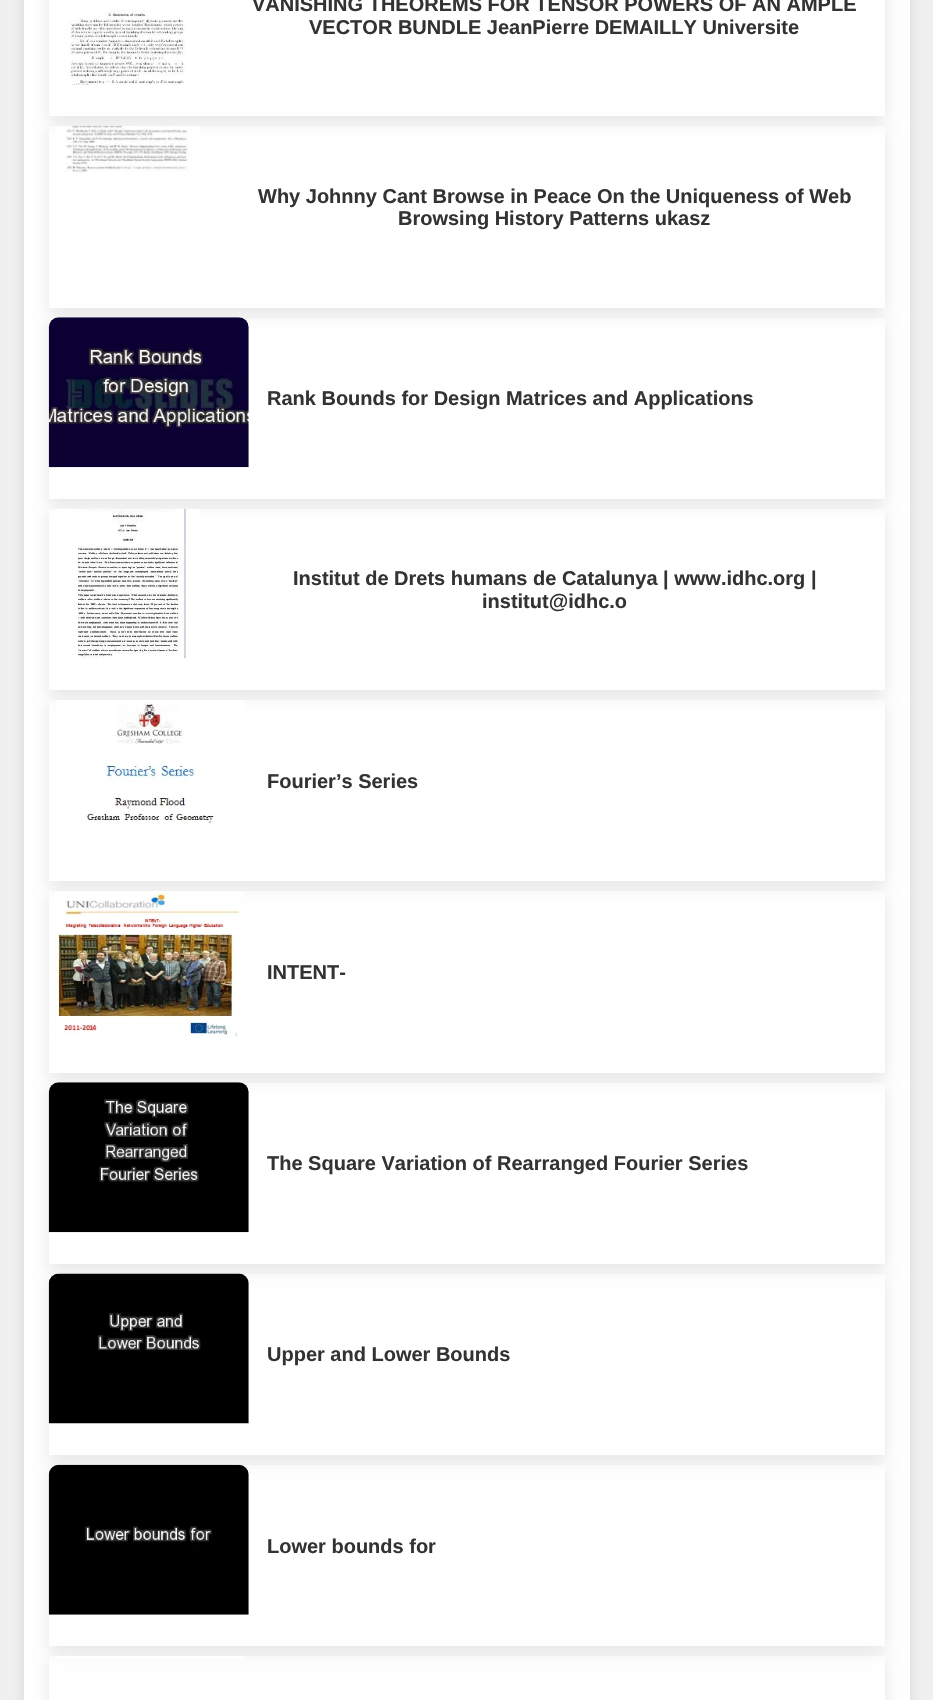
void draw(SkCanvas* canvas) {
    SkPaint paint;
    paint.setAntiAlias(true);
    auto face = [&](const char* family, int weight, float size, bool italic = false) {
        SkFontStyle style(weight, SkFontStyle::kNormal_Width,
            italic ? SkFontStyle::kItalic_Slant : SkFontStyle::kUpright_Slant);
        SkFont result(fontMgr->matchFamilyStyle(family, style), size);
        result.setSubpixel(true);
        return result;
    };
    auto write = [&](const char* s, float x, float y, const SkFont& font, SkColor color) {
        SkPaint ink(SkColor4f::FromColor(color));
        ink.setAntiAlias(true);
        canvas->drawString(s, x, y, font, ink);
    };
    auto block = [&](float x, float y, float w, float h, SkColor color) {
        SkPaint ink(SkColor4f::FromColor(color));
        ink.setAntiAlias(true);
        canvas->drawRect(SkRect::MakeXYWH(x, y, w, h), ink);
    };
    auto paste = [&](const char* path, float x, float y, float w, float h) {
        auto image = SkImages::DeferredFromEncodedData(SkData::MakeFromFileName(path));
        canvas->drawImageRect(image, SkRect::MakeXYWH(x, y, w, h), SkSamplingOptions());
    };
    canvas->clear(SkColorSetRGB(240, 240, 240));
    paint.setColor(SkColorSetARGB(26, 0, 0, 0));
    paint.setMaskFilter(SkMaskFilter::MakeBlur(kNormal_SkBlurStyle, 6));
    canvas->drawRoundRect(SkRect::MakeXYWH(24, -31, 886, 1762), 13, 13, paint);
    paint.setMaskFilter(nullptr);
    block(24, 0, 886, 1700, SK_ColorWHITE);
    canvas->save();
    canvas->clipPath(SkPathBuilder(SkPathFillType::kEvenOdd).moveTo(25, 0).lineTo(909, 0).lineTo(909, 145).lineTo(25, 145).close().moveTo(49, -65).lineTo(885, -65).lineTo(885, 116).lineTo(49, 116).close().detach(), true);
    paint.setMaskFilter(SkMaskFilter::MakeBlur(kNormal_SkBlurStyle, 7.5f));
    canvas->drawRect(SkRect::MakeXYWH(49, -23, 836, 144), paint);
    paint.setMaskFilter(nullptr);
    canvas->restore();
    paste("pic1.png", 69, 10, 116, 75);
    auto kFont1 = face("Liberation Sans", 700, 20);
    write("VANISHING THEOREMS FOR TENSOR POWERS OF AN AMPLE", 252, 11, kFont1, SkColorSetRGB(51, 51, 51));
    write("VECTOR BUNDLE JeanPierre DEMAILLY Universite", 309, 34, kFont1, SkColorSetRGB(51, 51, 51));
    canvas->save();
    canvas->clipPath(SkPathBuilder(SkPathFillType::kEvenOdd).moveTo(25, 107).lineTo(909, 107).lineTo(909, 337).lineTo(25, 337).close().moveTo(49, 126).lineTo(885, 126).lineTo(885, 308).lineTo(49, 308).close().detach(), true);
    paint.setMaskFilter(SkMaskFilter::MakeBlur(kNormal_SkBlurStyle, 7.5f));
    canvas->drawRect(SkRect::MakeXYWH(49, 131, 836, 182), paint);
    paint.setMaskFilter(nullptr);
    canvas->restore();
    paste("pic2.png", 56, 126, 144, 47);
    write("Why Johnny Cant Browse in Peace On the Uniqueness of Web", 258, 203, kFont1, SkColorSetRGB(51, 51, 51));
    write("Browsing History Patterns ukasz", 398, 225, kFont1, SkColorSetRGB(51, 51, 51));
    canvas->save();
    canvas->clipPath(SkPathBuilder(SkPathFillType::kEvenOdd).moveTo(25, 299).lineTo(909, 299).lineTo(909, 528).lineTo(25, 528).close().moveTo(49, 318).lineTo(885, 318).lineTo(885, 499).lineTo(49, 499).close().detach(), true);
    paint.setMaskFilter(SkMaskFilter::MakeBlur(kNormal_SkBlurStyle, 7.5f));
    canvas->drawRect(SkRect::MakeXYWH(49, 323, 836, 181), paint);
    paint.setMaskFilter(nullptr);
    canvas->restore();
    paste("pic3.png", 48, 317, 201, 151);
    write("Rank Bounds for Design Matrices and Applications", 267, 405, kFont1, SkColorSetRGB(51, 51, 51));
    canvas->save();
    canvas->clipPath(SkPathBuilder(SkPathFillType::kEvenOdd).moveTo(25, 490).lineTo(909, 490).lineTo(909, 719).lineTo(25, 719).close().moveTo(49, 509).lineTo(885, 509).lineTo(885, 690).lineTo(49, 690).close().detach(), true);
    paint.setMaskFilter(SkMaskFilter::MakeBlur(kNormal_SkBlurStyle, 7.5f));
    canvas->drawRect(SkRect::MakeXYWH(49, 514, 836, 181), paint);
    paint.setMaskFilter(nullptr);
    canvas->restore();
    paste("pic4.png", 55, 508, 146, 151);
    write("Institut de Drets humans de Catalunya | www.idhc.org |", 293, 585, kFont1, SkColorSetRGB(51, 51, 51));
    write("institut@idhc.o", 482, 608, kFont1, SkColorSetRGB(51, 51, 51));
    canvas->save();
    canvas->clipPath(SkPathBuilder(SkPathFillType::kEvenOdd).moveTo(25, 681).lineTo(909, 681).lineTo(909, 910).lineTo(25, 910).close().moveTo(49, 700).lineTo(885, 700).lineTo(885, 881).lineTo(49, 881).close().detach(), true);
    paint.setMaskFilter(SkMaskFilter::MakeBlur(kNormal_SkBlurStyle, 7.5f));
    canvas->drawRect(SkRect::MakeXYWH(49, 705, 836, 181), paint);
    paint.setMaskFilter(nullptr);
    canvas->restore();
    paste("pic5.png", 56, 700, 188, 125);
    write("Fourier’s Series", 267, 788, kFont1, SkColorSetRGB(51, 51, 51));
    canvas->save();
    canvas->clipPath(SkPathBuilder(SkPathFillType::kEvenOdd).moveTo(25, 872).lineTo(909, 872).lineTo(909, 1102).lineTo(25, 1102).close().moveTo(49, 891).lineTo(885, 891).lineTo(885, 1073).lineTo(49, 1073).close().detach(), true);
    paint.setMaskFilter(SkMaskFilter::MakeBlur(kNormal_SkBlurStyle, 7.5f));
    canvas->drawRect(SkRect::MakeXYWH(49, 896, 836, 182), paint);
    paint.setMaskFilter(nullptr);
    canvas->restore();
    paste("pic6.png", 55, 891, 189, 147);
    write("INTENT-", 267, 979, kFont1, SkColorSetRGB(51, 51, 51));
    canvas->save();
    canvas->clipPath(SkPathBuilder(SkPathFillType::kEvenOdd).moveTo(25, 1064).lineTo(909, 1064).lineTo(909, 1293).lineTo(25, 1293).close().moveTo(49, 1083).lineTo(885, 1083).lineTo(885, 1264).lineTo(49, 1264).close().detach(), true);
    paint.setMaskFilter(SkMaskFilter::MakeBlur(kNormal_SkBlurStyle, 7.5f));
    canvas->drawRect(SkRect::MakeXYWH(49, 1088, 836, 181), paint);
    paint.setMaskFilter(nullptr);
    canvas->restore();
    paste("pic7.png", 48, 1082, 201, 151);
    write("The Square Variation of Rearranged Fourier Series", 267, 1170, kFont1, SkColorSetRGB(51, 51, 51));
    canvas->save();
    canvas->clipPath(SkPathBuilder(SkPathFillType::kEvenOdd).moveTo(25, 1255).lineTo(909, 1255).lineTo(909, 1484).lineTo(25, 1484).close().moveTo(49, 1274).lineTo(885, 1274).lineTo(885, 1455).lineTo(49, 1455).close().detach(), true);
    paint.setMaskFilter(SkMaskFilter::MakeBlur(kNormal_SkBlurStyle, 7.5f));
    canvas->drawRect(SkRect::MakeXYWH(49, 1279, 836, 181), paint);
    paint.setMaskFilter(nullptr);
    canvas->restore();
    paste("pic8.png", 48, 1273, 201, 151);
    write("Upper and Lower Bounds", 267, 1361, kFont1, SkColorSetRGB(51, 51, 51));
    canvas->save();
    canvas->clipPath(SkPathBuilder(SkPathFillType::kEvenOdd).moveTo(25, 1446).lineTo(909, 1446).lineTo(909, 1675).lineTo(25, 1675).close().moveTo(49, 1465).lineTo(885, 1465).lineTo(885, 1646).lineTo(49, 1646).close().detach(), true);
    paint.setMaskFilter(SkMaskFilter::MakeBlur(kNormal_SkBlurStyle, 7.5f));
    canvas->drawRect(SkRect::MakeXYWH(49, 1470, 836, 181), paint);
    paint.setMaskFilter(nullptr);
    canvas->restore();
    paste("pic9.png", 48, 1464, 201, 151);
    write("Lower bounds for", 267, 1553, kFont1, SkColorSetRGB(51, 51, 51));
    canvas->save();
    canvas->clipPath(SkPathBuilder(SkPathFillType::kEvenOdd).moveTo(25, 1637).lineTo(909, 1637).lineTo(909, 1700).lineTo(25, 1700).close().moveTo(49, 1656).lineTo(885, 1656).lineTo(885, 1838).lineTo(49, 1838).close().detach(), true);
    paint.setMaskFilter(SkMaskFilter::MakeBlur(kNormal_SkBlurStyle, 7.5f));
    canvas->drawRect(SkRect::MakeXYWH(49, 1661, 836, 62), paint);
    paint.setMaskFilter(nullptr);
    canvas->restore();
    block(56, 1656, 188, 3, SK_ColorWHITE);
}
